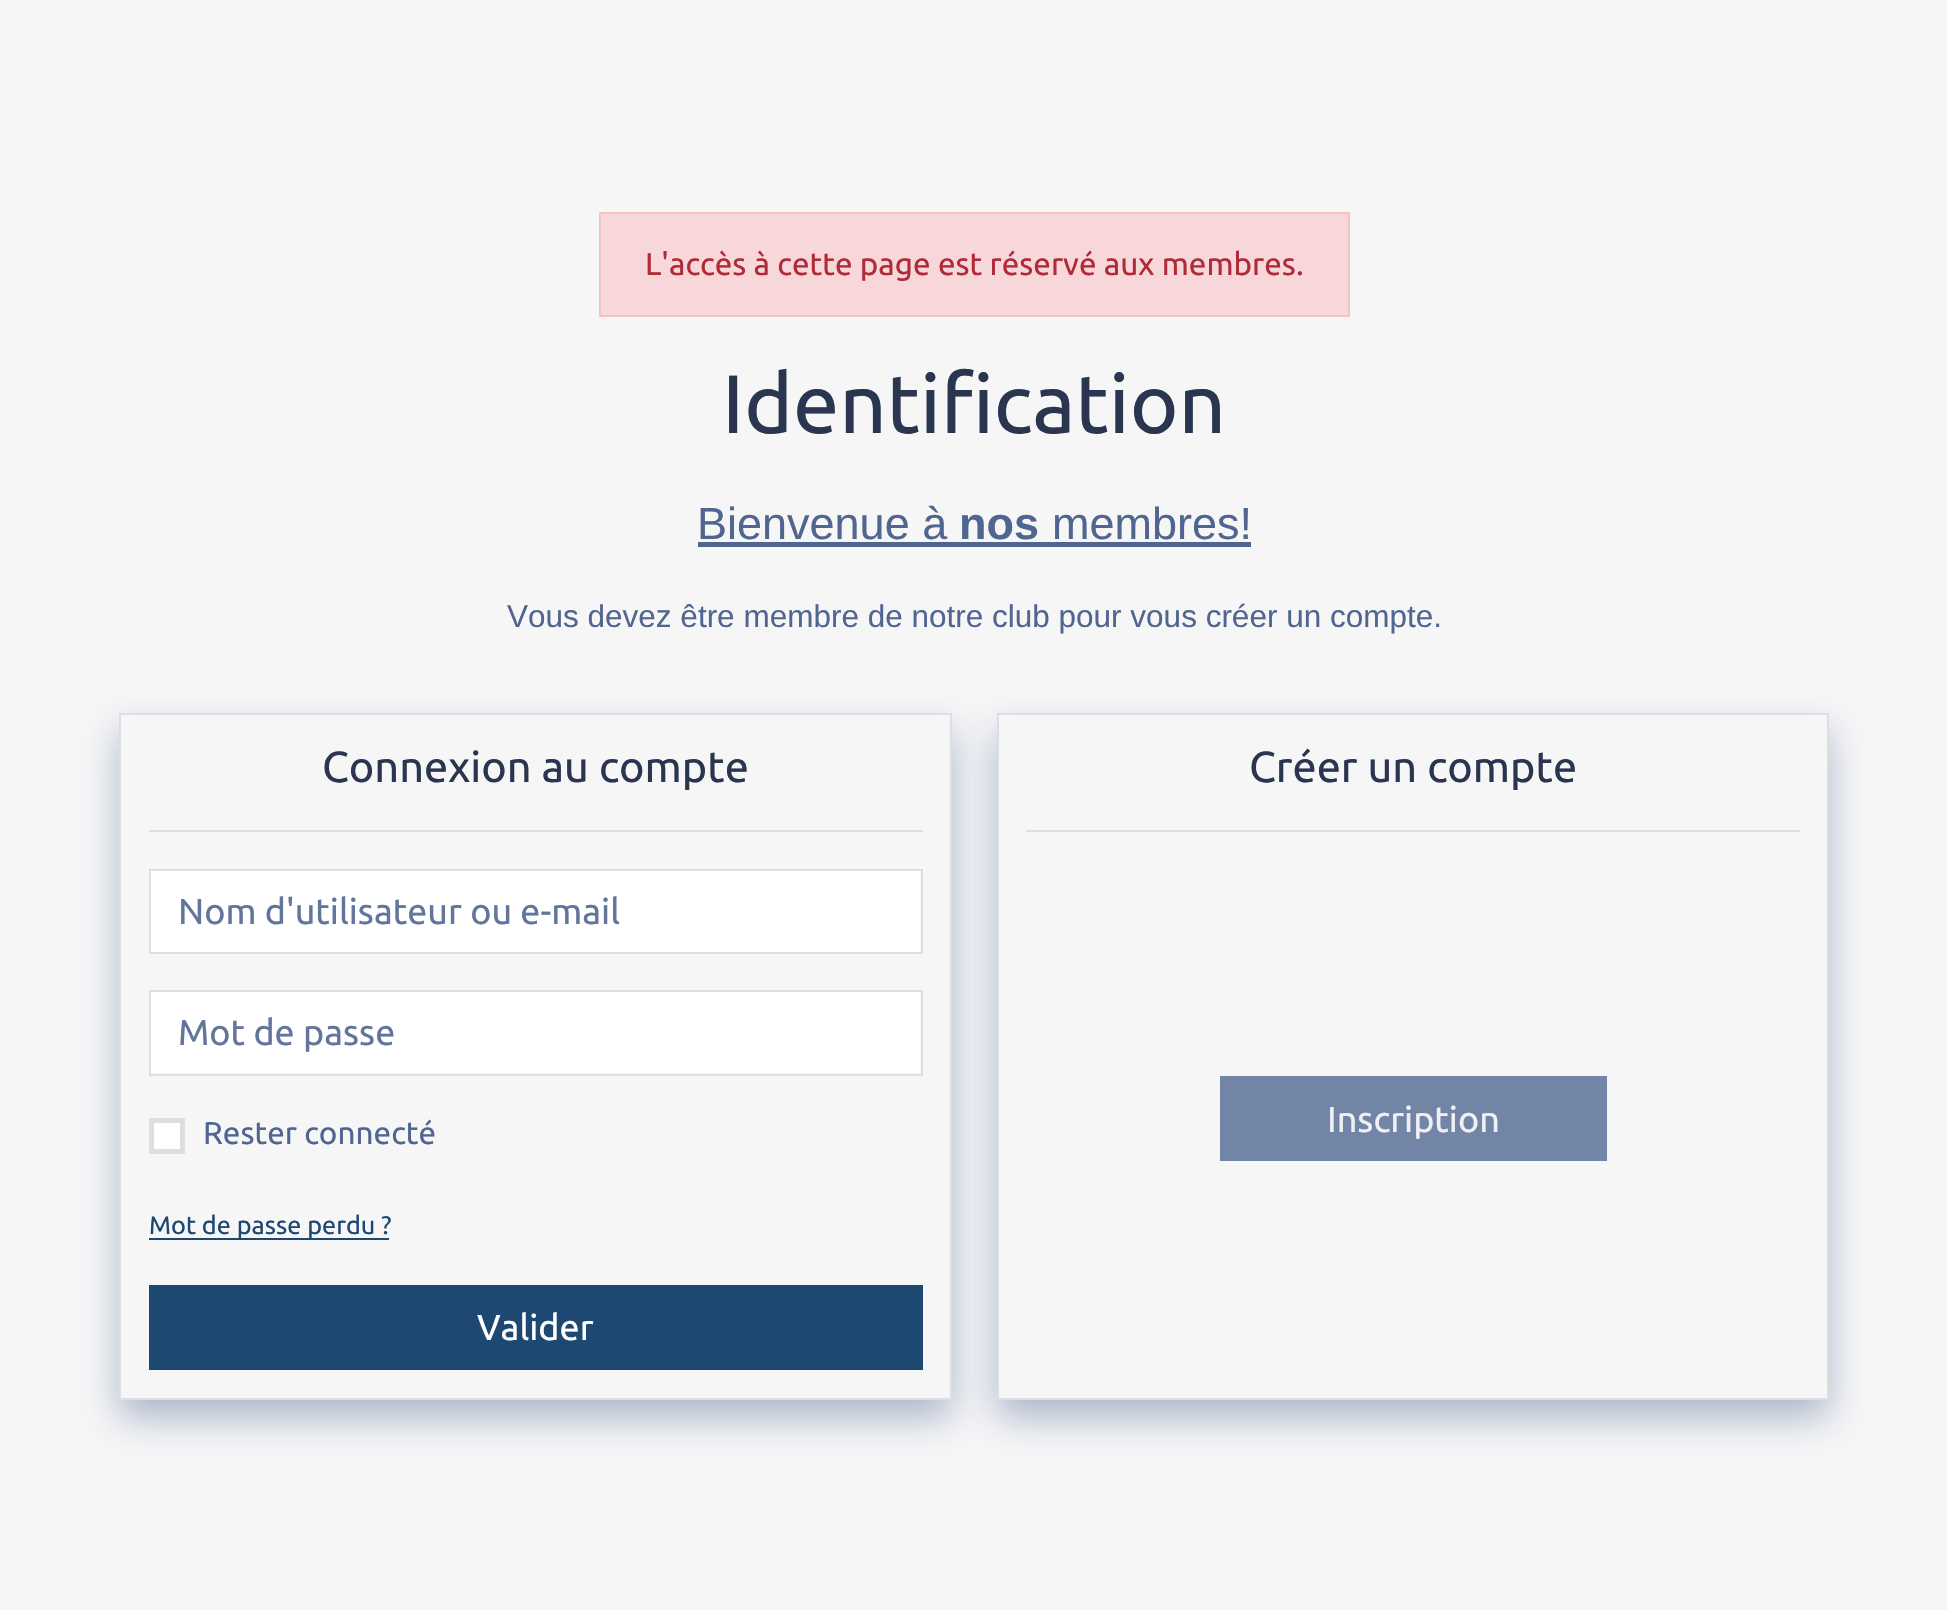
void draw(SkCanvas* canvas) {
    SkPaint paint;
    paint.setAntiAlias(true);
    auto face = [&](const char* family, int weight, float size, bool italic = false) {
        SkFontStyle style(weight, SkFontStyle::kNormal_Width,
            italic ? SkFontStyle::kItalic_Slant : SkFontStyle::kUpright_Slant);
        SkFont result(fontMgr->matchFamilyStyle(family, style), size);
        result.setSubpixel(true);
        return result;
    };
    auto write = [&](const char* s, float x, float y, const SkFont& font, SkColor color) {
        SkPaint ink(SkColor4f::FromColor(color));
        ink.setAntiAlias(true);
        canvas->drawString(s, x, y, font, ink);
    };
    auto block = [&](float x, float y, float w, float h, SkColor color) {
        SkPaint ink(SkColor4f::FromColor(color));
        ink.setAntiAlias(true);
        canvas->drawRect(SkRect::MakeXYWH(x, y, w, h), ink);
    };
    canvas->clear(SkColorSetRGB(246, 246, 247));
    paint.setColor(SkColorSetRGB(248, 215, 218));
    canvas->drawRect(SkRect::MakeXYWH(600, 213, 749, 103), paint);
    paint.setStyle(SkPaint::kStroke_Style);
    paint.setStrokeWidth(2);
    paint.setColor(SkColorSetRGB(245, 194, 199));
    canvas->drawRect(SkRect::MakeXYWH(600, 213, 749, 103), paint);
    auto kFont1 = face("Ubuntu", 400, 31.5f);
    write("L'accès à cette page est réservé aux membres.", 645, 275, kFont1, SkColorSetRGB(176, 42, 55));
    auto kFont2 = face("Ubuntu", 400, 82.75f);
    write("Identification", 722, 433, kFont2, SkColorSetRGB(42, 53, 79));
    auto kFont3 = face("Liberation Sans", 400, 45);
    write("Bienvenue à", 697, 539, kFont3, SkColorSetRGB(80, 102, 144));
    auto kFont4 = face("Liberation Sans", 700, 45);
    write("nos", 959, 539, kFont4, SkColorSetRGB(80, 102, 144));
    block(698, 542, 553, 5, SkColorSetRGB(80, 102, 144));
    write("membres!", 1052, 539, kFont3, SkColorSetRGB(80, 102, 144));
    auto kFont5 = face("Liberation Sans", 400, 31.5f);
    write("Vous devez être membre de notre club pour vous créer un compte.", 507, 627, kFont5, SkColorSetRGB(80, 102, 144));
    paint.setStyle(SkPaint::kFill_Style);
    paint.setColor(SkColorSetARGB(128, 98, 117, 155));
    paint.setMaskFilter(SkMaskFilter::MakeBlur(kNormal_SkBlurStyle, 18));
    canvas->drawRect(SkRect::MakeXYWH(119, 731, 833, 687), paint);
    paint.setMaskFilter(nullptr);
    paint.setColor(SkColorSetRGB(246, 246, 247));
    canvas->drawRect(SkRect::MakeXYWH(120, 714, 831, 685), paint);
    paint.setStyle(SkPaint::kStroke_Style);
    paint.setColor(SkColorSetRGB(219, 223, 226));
    canvas->drawRect(SkRect::MakeXYWH(120, 714, 831, 685), paint);
    block(149, 830, 774, 2, SkColorSetRGB(219, 223, 226));
    auto kFont6 = face("Ubuntu", 400, 43.25f);
    write("Connexion au compte", 322, 782, kFont6, SkColorSetRGB(42, 53, 79));
    block(151, 871, 769, 81, SK_ColorWHITE);
    canvas->drawRect(SkRect::MakeXYWH(150, 870, 772, 83), paint);
    auto kFont7 = face("Ubuntu", 400, 36);
    write("Nom d'utilisateur ou e-mail", 178, 924, kFont7, SkColorSetRGB(98, 117, 155));
    block(151, 992, 769, 81, SK_ColorWHITE);
    canvas->drawRect(SkRect::MakeXYWH(150, 991, 772, 84), paint);
    write("Mot de passe", 178, 1045, kFont7, SkColorSetRGB(98, 117, 155));
    paint.setStyle(SkPaint::kFill_Style);
    paint.setColor(SK_ColorWHITE);
    canvas->drawRect(SkRect::MakeXYWH(151.5f, 1120.5f, 31, 31), paint);
    paint.setStyle(SkPaint::kStroke_Style);
    paint.setStrokeWidth(5);
    paint.setColor(SkColorSetRGB(219, 223, 226));
    canvas->drawRect(SkRect::MakeXYWH(151.5f, 1120.5f, 31, 31), paint);
    write("Rester connecté", 203, 1144, kFont1, SkColorSetRGB(80, 102, 144));
    block(149, 1238, 240, 2, SkColorSetRGB(29, 72, 114));
    auto kFont8 = face("Ubuntu", 400, 25.25f);
    write("Mot de passe perdu ?", 149, 1234, kFont8, SkColorSetRGB(29, 72, 114));
    block(149, 1285, 774, 85, SkColorSetRGB(29, 72, 114));
    write("Valider", 477, 1340, kFont7, SK_ColorWHITE);
    paint.setStyle(SkPaint::kFill_Style);
    paint.setColor(SkColorSetARGB(128, 98, 117, 155));
    paint.setMaskFilter(SkMaskFilter::MakeBlur(kNormal_SkBlurStyle, 18));
    canvas->drawRect(SkRect::MakeXYWH(997, 731, 832, 687), paint);
    paint.setMaskFilter(nullptr);
    paint.setColor(SkColorSetRGB(246, 246, 247));
    canvas->drawRect(SkRect::MakeXYWH(998, 714, 830, 685), paint);
    paint.setStyle(SkPaint::kStroke_Style);
    paint.setStrokeWidth(2);
    paint.setColor(SkColorSetRGB(219, 223, 226));
    canvas->drawRect(SkRect::MakeXYWH(998, 714, 830, 685), paint);
    block(1026, 830, 774, 2, SkColorSetRGB(219, 223, 226));
    write("Créer un compte", 1249, 782, kFont6, SkColorSetRGB(42, 53, 79));
    block(1220, 1076, 387, 85, SkColorSetRGB(115, 133, 166));
    write("Inscription", 1327, 1132, kFont7, SkColorSetRGB(238, 240, 244));
}
